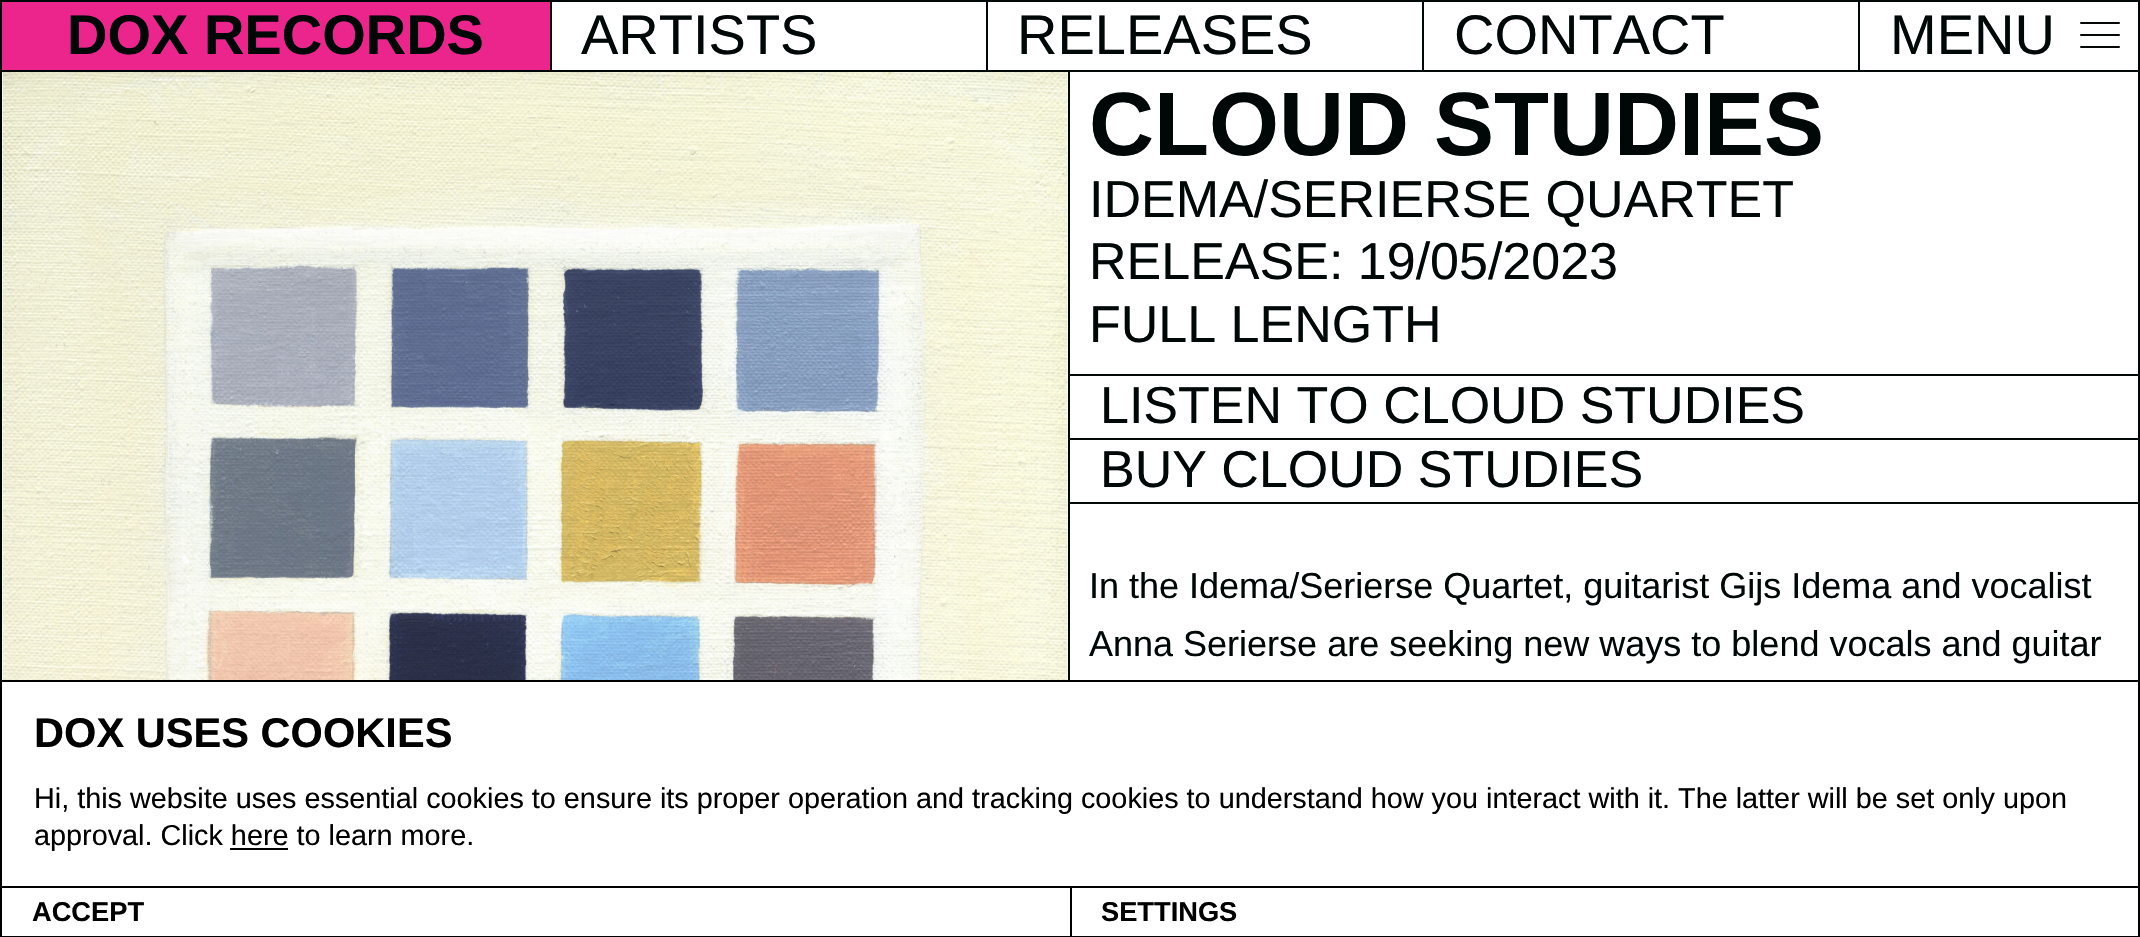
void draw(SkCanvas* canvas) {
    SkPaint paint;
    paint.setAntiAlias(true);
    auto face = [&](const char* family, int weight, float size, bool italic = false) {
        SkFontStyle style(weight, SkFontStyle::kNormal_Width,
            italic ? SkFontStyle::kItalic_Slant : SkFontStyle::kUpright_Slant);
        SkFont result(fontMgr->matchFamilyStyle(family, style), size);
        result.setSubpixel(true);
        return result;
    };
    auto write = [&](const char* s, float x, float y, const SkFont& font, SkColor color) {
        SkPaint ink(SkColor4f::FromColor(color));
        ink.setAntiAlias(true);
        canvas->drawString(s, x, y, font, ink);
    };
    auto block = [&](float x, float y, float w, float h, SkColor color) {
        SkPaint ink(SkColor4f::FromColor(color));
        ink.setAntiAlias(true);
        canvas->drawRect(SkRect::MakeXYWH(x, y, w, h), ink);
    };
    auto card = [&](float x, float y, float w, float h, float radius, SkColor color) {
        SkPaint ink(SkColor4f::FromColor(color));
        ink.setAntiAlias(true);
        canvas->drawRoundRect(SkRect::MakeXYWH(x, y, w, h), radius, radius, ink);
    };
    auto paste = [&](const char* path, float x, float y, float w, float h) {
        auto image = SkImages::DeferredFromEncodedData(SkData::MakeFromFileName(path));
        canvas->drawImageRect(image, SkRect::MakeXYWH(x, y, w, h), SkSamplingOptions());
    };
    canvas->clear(SK_ColorWHITE);
    paint.setColor(SkColorSetRGB(236, 37, 140));
    canvas->drawRect(SkRect::MakeXYWH(1, 1, 550, 70), paint);
    paint.setStyle(SkPaint::kStroke_Style);
    paint.setStrokeWidth(2);
    paint.setColor(SkColorSetRGB(0, 7, 7));
    canvas->drawRect(SkRect::MakeXYWH(1, 1, 550, 70), paint);
    auto kFont1 = face("Liberation Sans", 700, 56);
    write("DOX RECORDS", 67, 54, kFont1, SkColorSetRGB(0, 7, 7));
    block(552, 0, 1306, 2, SkColorSetRGB(0, 7, 7));
    block(986, 0, 2, 72, SkColorSetRGB(0, 7, 7));
    block(552, 70, 436, 2, SkColorSetRGB(0, 7, 7));
    auto kFont2 = face("Liberation Sans", 400, 56);
    write("ARTISTS", 581, 54, kFont2, SkColorSetRGB(0, 7, 7));
    block(1422, 0, 2, 72, SkColorSetRGB(0, 7, 7));
    block(988, 70, 870, 2, SkColorSetRGB(0, 7, 7));
    write("RELEASES", 1017, 54, kFont2, SkColorSetRGB(0, 7, 7));
    write("CONTACT", 1454, 54, kFont2, SkColorSetRGB(0, 7, 7));
    canvas->drawRect(SkRect::MakeXYWH(1859, 1, 280, 70), paint);
    write("MENU", 1890, 54, kFont2, SkColorSetRGB(0, 7, 7));
    card(2080, 22, 40, 2, 1, SkColorSetRGB(4, 7, 7));
    card(2080, 34, 40, 2, 1, SkColorSetRGB(4, 7, 7));
    card(2080, 46, 40, 2, 1, SkColorSetRGB(4, 7, 7));
    block(1068, 72, 2, 608, SkColorSetRGB(0, 7, 7));
    block(0, 72, 2, 608, SkColorSetRGB(0, 7, 7));
    paste("pic1.png", 2, 72, 1066, 608);
    block(2138, 72, 2, 608, SkColorSetRGB(0, 7, 7));
    block(1070, 374, 1068, 2, SkColorSetRGB(0, 7, 7));
    auto kFont3 = face("Liberation Sans", 700, 90);
    write("CLOUD STUDIES", 1089, 155, kFont3, SkColorSetRGB(0, 7, 7));
    auto kFont4 = face("Liberation Sans", 400, 52);
    write("IDEMA/SERIERSE QUARTET", 1089, 217, kFont4, SkColorSetRGB(0, 7, 7));
    write("RELEASE: 19/05/2023", 1089, 279, kFont4, SkColorSetRGB(0, 7, 7));
    write("FULL LENGTH", 1089, 342, kFont4, SkColorSetRGB(0, 7, 7));
    write("LISTEN TO CLOUD STUDIES", 1100, 423, kFont4, SkColorSetRGB(0, 7, 7));
    block(1070, 438, 1068, 2, SkColorSetRGB(0, 7, 7));
    block(1070, 502, 1068, 2, SkColorSetRGB(0, 7, 7));
    write("BUY CLOUD STUDIES", 1100, 487, kFont4, SkColorSetRGB(0, 7, 7));
    auto kFont5 = face("Liberation Sans", 400, 36);
    write("In the Idema/Serierse Quartet, guitarist Gijs Idema and vocalist", 1089, 598, kFont5, SkColorSetRGB(0, 7, 7));
    write("Anna Serierse are seeking new ways to blend vocals and guitar", 1089, 656, kFont5, SkColorSetRGB(0, 7, 7));
    block(0, 680, 2140, 2, SK_ColorBLACK);
    block(2138, 680, 2, 257, SK_ColorBLACK);
    block(0, 682, 2, 204, SK_ColorBLACK);
    auto kFont6 = face("Liberation Sans", 700, 41.6f);
    write("DOX USES COOKIES", 34, 747, kFont6, SK_ColorBLACK);
    auto kFont7 = face("Liberation Sans", 400, 28.8f);
    write("Hi, this website uses essential cookies to ensure its proper operation and tracking cookies to understand how you interact with it. The latter will be set only upon", 34, 808, kFont7, SK_ColorBLACK);
    write("approval. Click here to learn more.", 34, 845, kFont7, SK_ColorBLACK);
    block(230, 848, 58, 2, SK_ColorBLACK);
    block(0, 886, 2138, 2, SK_ColorBLACK);
    block(0, 936, 2138, 1, SK_ColorBLACK);
    block(0, 886, 2, 51, SK_ColorBLACK);
    auto kFont8 = face("Liberation Sans", 700, 27.25f);
    write("ACCEPT", 32, 921, kFont8, SK_ColorBLACK);
    block(1070, 886, 2, 51, SK_ColorBLACK);
    write("SETTINGS", 1101, 921, kFont8, SK_ColorBLACK);
}
